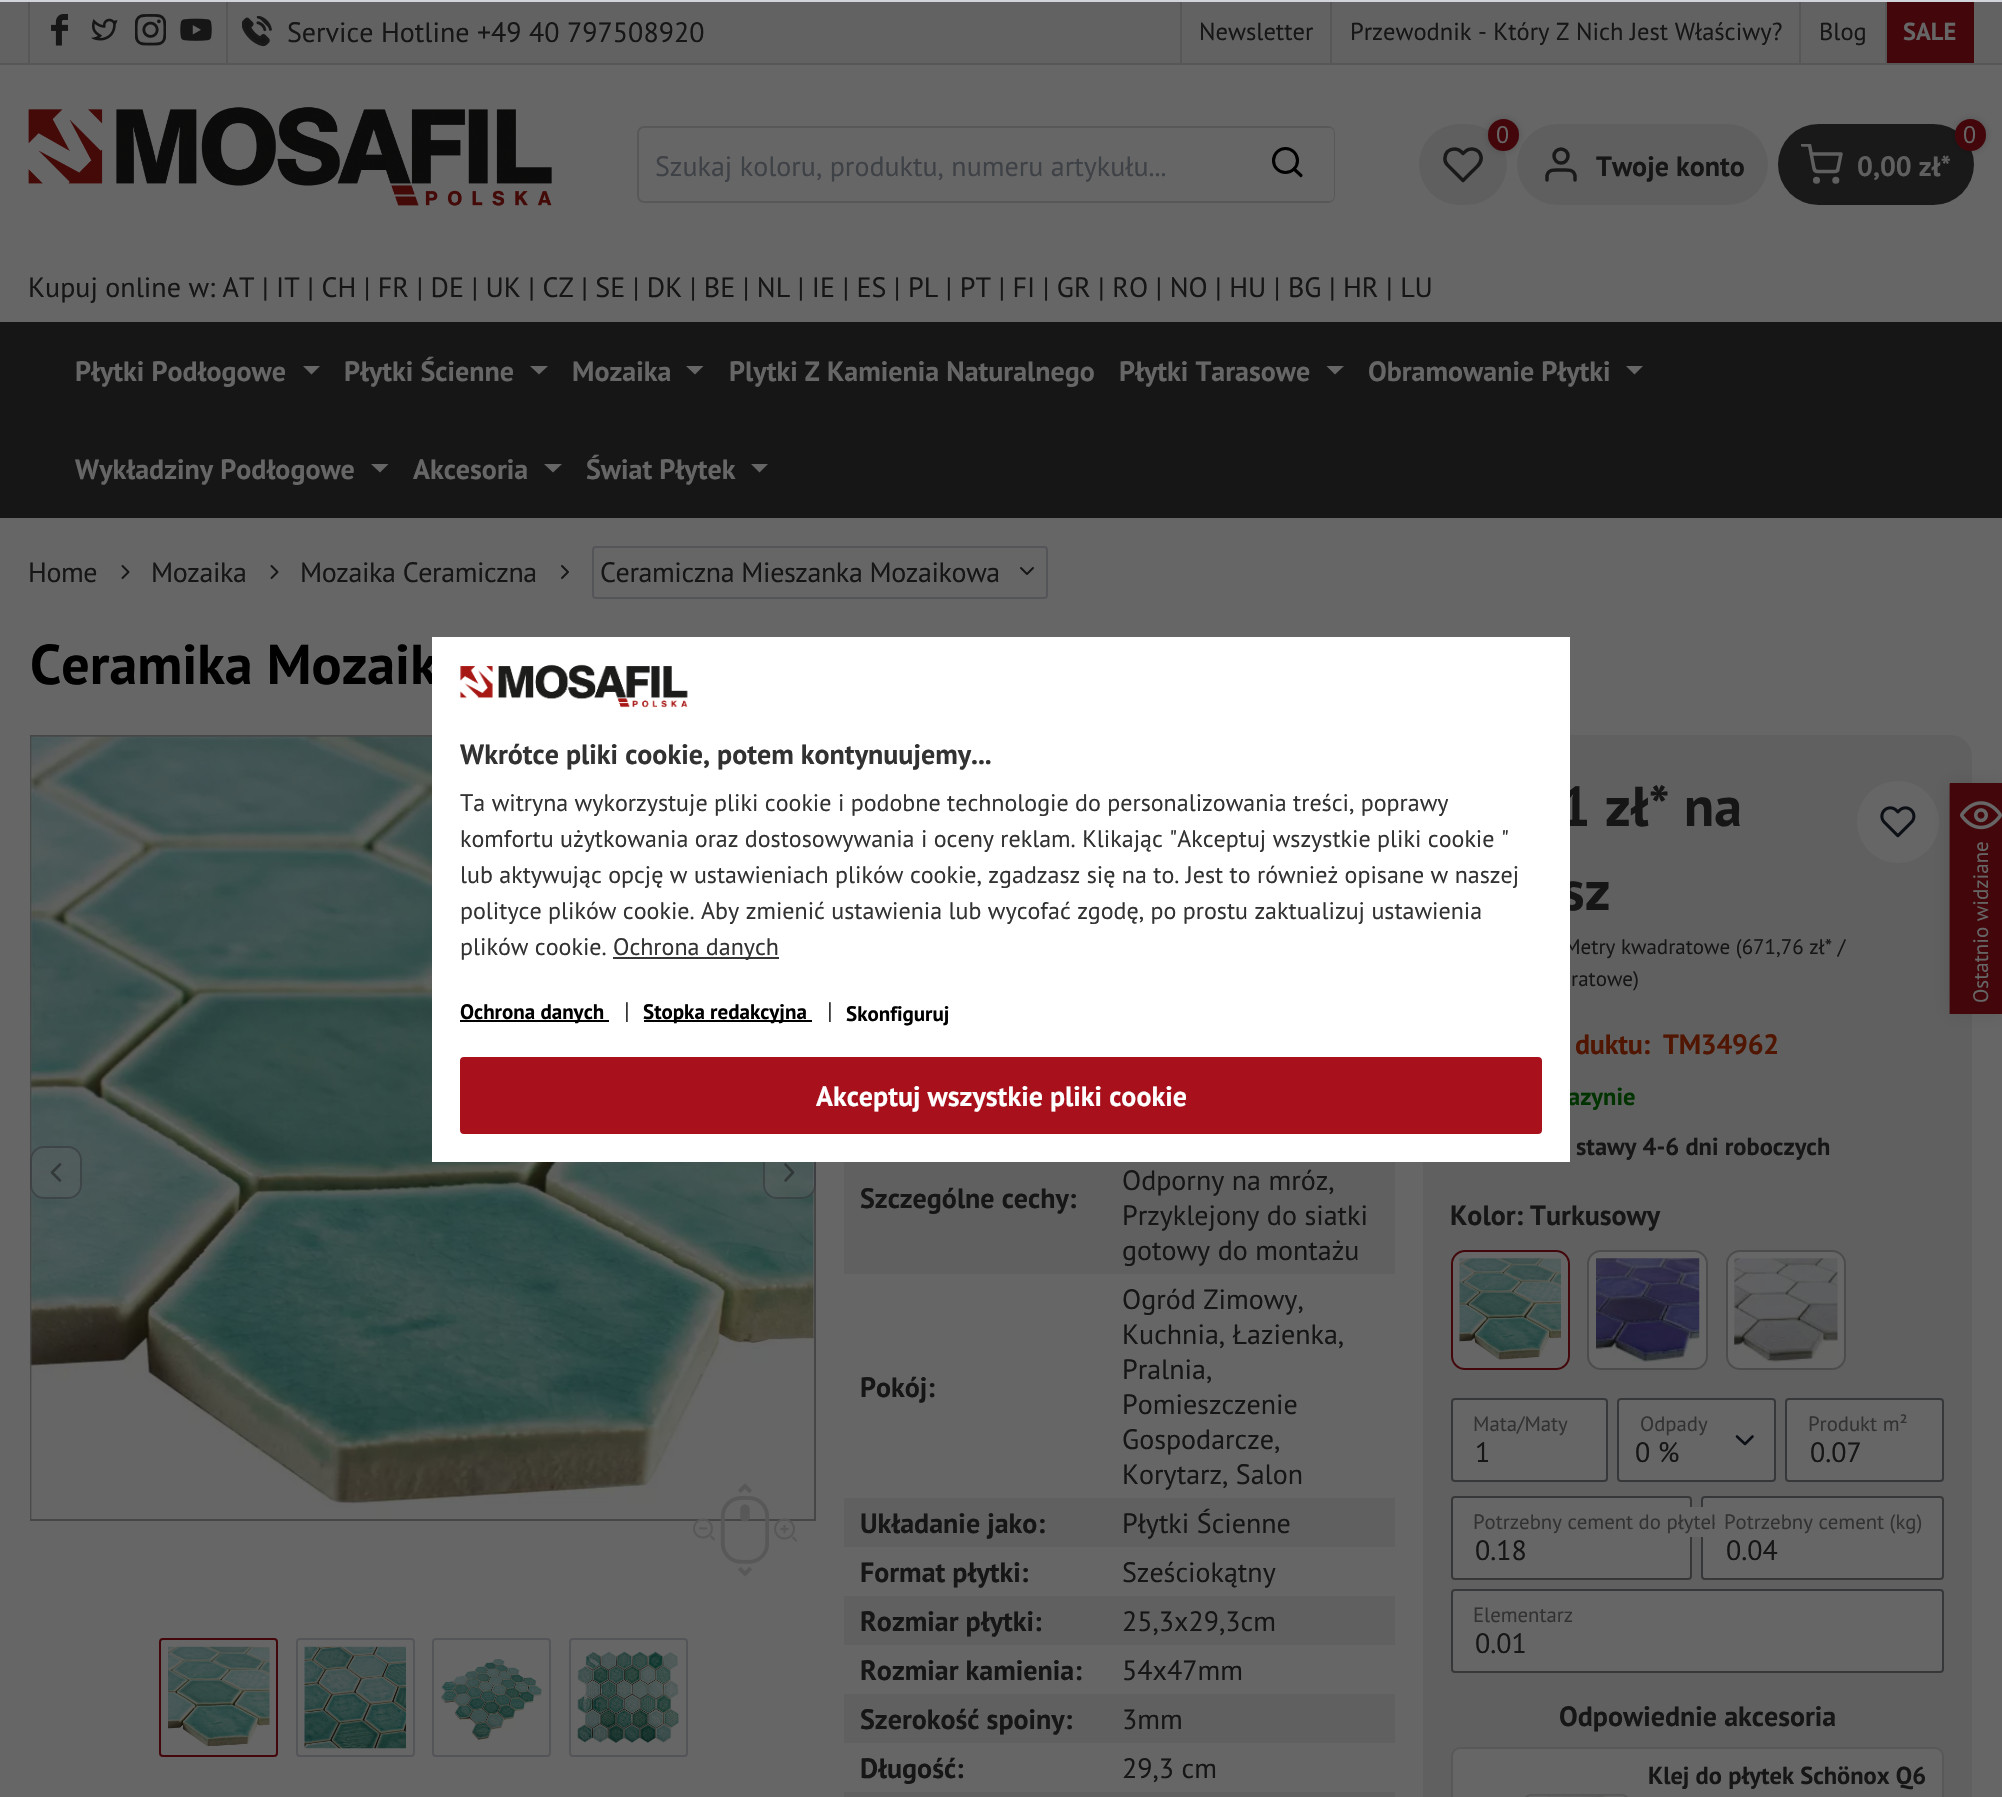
void draw(SkCanvas* canvas) {
    SkPaint paint;
    paint.setAntiAlias(true);
    auto face = [&](const char* family, int weight, float size, bool italic = false) {
        SkFontStyle style(weight, SkFontStyle::kNormal_Width,
            italic ? SkFontStyle::kItalic_Slant : SkFontStyle::kUpright_Slant);
        SkFont result(fontMgr->matchFamilyStyle(family, style), size);
        result.setSubpixel(true);
        return result;
    };
    auto write = [&](const char* s, float x, float y, const SkFont& font, SkColor color) {
        SkPaint ink(SkColor4f::FromColor(color));
        ink.setAntiAlias(true);
        canvas->drawString(s, x, y, font, ink);
    };
    auto writeSpaced = [&](const char* s, float x, float y, const SkFont& font, const SkPaint& ink, float letter, float word) {
        std::vector<SkGlyphID> glyphs(font.countText(s, strlen(s), SkTextEncoding::kUTF8));
        std::vector<float> xs(glyphs.size());
        font.textToGlyphs(s, strlen(s), SkTextEncoding::kUTF8, glyphs);
        font.getXPos(glyphs, xs, x);
        float extra = 0;
        for (size_t i = 0; i < glyphs.size(); i++) {
            xs[i] += extra;
            extra += letter + word * (glyphs[i] == font.unicharToGlyph(' '));
        }
        canvas->drawTextBlob(SkTextBlob::MakeFromPosHGlyphs(glyphs, xs, y, font), 0, 0, ink);
    };
    auto block = [&](float x, float y, float w, float h, SkColor color) {
        SkPaint ink(SkColor4f::FromColor(color));
        ink.setAntiAlias(true);
        canvas->drawRect(SkRect::MakeXYWH(x, y, w, h), ink);
    };
    auto card = [&](float x, float y, float w, float h, float radius, SkColor color) {
        SkPaint ink(SkColor4f::FromColor(color));
        ink.setAntiAlias(true);
        canvas->drawRoundRect(SkRect::MakeXYWH(x, y, w, h), radius, radius, ink);
    };
    auto paste = [&](const char* path, float x, float y, float w, float h) {
        auto image = SkImages::DeferredFromEncodedData(SkData::MakeFromFileName(path));
        canvas->drawImageRect(image, SkRect::MakeXYWH(x, y, w, h), SkSamplingOptions());
    };
    canvas->clear(SkColorSetRGB(102, 102, 102));
    block(0, 2, 2002, 61, SkColorSetRGB(98, 98, 98));
    block(0, 63, 2002, 2, SkColorSetRGB(87, 87, 87));
    block(28, 0, 2, 63, SkColorSetRGB(87, 87, 87));
    paste("pic1.png", 51, 14, 17, 32);
    paste("pic2.png", 91, 18, 27, 23);
    paste("pic3.png", 135, 14, 31, 32);
    paste("pic4.png", 180, 18, 32, 23);
    block(226, 0, 2, 63, SkColorSetRGB(87, 87, 87));
    paste("pic5.png", 242, 16, 30, 31);
    auto kFont1 = face("PT Sans", 400, 28);
    write("Service Hotline +49 40 797508920", 287, 42, kFont1, SkColorSetRGB(22, 22, 22));
    block(1180, 0, 2, 63, SkColorSetRGB(87, 87, 87));
    auto kFont2 = face("PT Sans", 400, 24.5f);
    write("Newsletter", 1199, 40, kFont2, SkColorSetRGB(22, 22, 22));
    block(1330, 0, 2, 63, SkColorSetRGB(87, 87, 87));
    write("Przewodnik - Który Z Nich Jest Właściwy?", 1350, 40, kFont2, SkColorSetRGB(22, 22, 22));
    block(1799, 0, 2, 63, SkColorSetRGB(87, 87, 87));
    write("Blog", 1819, 40, kFont2, SkColorSetRGB(22, 22, 22));
    block(1887, 2, 87, 61, SkColorSetRGB(67, 7, 11));
    block(1885, 0, 2, 63, SkColorSetRGB(87, 87, 87));
    auto kFont3 = face("PT Sans", 700, 24.5f);
    write("SALE", 1903, 40, kFont3, SkColorSetRGB(102, 102, 102));
    paste("pic6.png", 28, 107, 524, 99);
    paint.setStyle(SkPaint::kStroke_Style);
    paint.setStrokeWidth(2);
    paint.setColor(SkColorSetRGB(88, 88, 88));
    canvas->drawRoundRect(SkRect::MakeXYWH(638, 127, 696, 75), 6, 6, paint);
    write("Szukaj koloru, produktu, numeru artykułu...", 655, 176, kFont1, SkColorSetRGB(62, 65, 70));
    paint.setStyle(SkPaint::kFill_Style);
    paint.setColor(SkColorSetRGB(102, 102, 102));
    canvas->drawPath(SkPathBuilder().moveTo(1241, 128).lineTo(1329, 128).cubicTo(1332, 128, 1334, 130, 1334, 133).lineTo(1334, 196).cubicTo(1334, 199, 1332, 201, 1329, 201).lineTo(1241, 201).close().detach(), paint);
    paint.setStyle(SkPaint::kStroke_Style);
    paint.setStrokeWidth(3.1f);
    paint.setColor(SK_ColorBLACK);
    canvas->drawCircle(1285.5f, 160.5f, 12, paint);
    paint.setStrokeCap(SkPaint::kRound_Cap);
    paint.setStrokeJoin(SkPaint::kRound_Join);
    canvas->drawPath(SkPathBuilder().moveTo(1301, 175.5f).lineTo(1294, 169).detach(), paint);
    card(1419, 124, 88, 81, 40.5f, SkColorSetRGB(95, 95, 95));
    paint.setStrokeWidth(3.5f);
    paint.setColor(SkColorSetRGB(25, 25, 25));
    canvas->drawPath(SkPathBuilder().moveTo(1478.5f, 151.5f).cubicTo(1475.5f, 148.5f, 1470, 148, 1466.5f, 150.5f).lineTo(1463, 153.5f).lineTo(1461, 151.5f).cubicTo(1457.5f, 148, 1451.5f, 148, 1447.5f, 151.5f).cubicTo(1444, 155.5f, 1444, 161.5f, 1447.5f, 165).lineTo(1463, 180.5f).lineTo(1472, 171.5f).cubicTo(1476, 167.5f, 1482.5f, 163, 1481, 156.5f).cubicTo(1480.5f, 154.5f, 1480, 153, 1478.5f, 151.5f).close().detach(), paint);
    card(1517, 124, 251, 81, 40.5f, SkColorSetRGB(95, 95, 95));
    paint.setStyle(SkPaint::kFill_Style);
    paint.setColor(SkColorSetARGB(43, 0, 0, 0));
    paint.setMaskFilter(SkMaskFilter::MakeBlur(kNormal_SkBlurStyle, 3.5f));
    canvas->drawRoundRect(SkRect::MakeXYWH(1488, 119, 31, 32), 15.5f, 15.5f, paint);
    paint.setMaskFilter(nullptr);
    paint.setColor(SkColorSetRGB(67, 7, 11));
    canvas->drawRoundRect(SkRect::MakeXYWH(1489, 120, 29, 30), 14.5f, 14.5f, paint);
    paint.setStyle(SkPaint::kStroke_Style);
    paint.setStrokeWidth(2);
    paint.setStrokeCap(SkPaint::kButt_Cap);
    paint.setStrokeJoin(SkPaint::kMiter_Join);
    canvas->drawRoundRect(SkRect::MakeXYWH(1489, 120, 29, 30), 14.5f, 14.5f, paint);
    auto kFont4 = face("PT Sans", 400, 24);
    write("0", 1496, 143, kFont4, SkColorSetRGB(102, 102, 102));
    paint.setStrokeWidth(3.5f);
    paint.setStrokeCap(SkPaint::kRound_Cap);
    paint.setStrokeJoin(SkPaint::kRound_Join);
    paint.setColor(SkColorSetRGB(25, 25, 25));
    canvas->drawPath(SkPathBuilder().moveTo(1575, 180).lineTo(1575, 175.5f).cubicTo(1573.5f, 168.5f, 1566, 170, 1561, 170).cubicTo(1556, 170, 1548.5f, 168.5f, 1547, 175.5f).lineTo(1547, 180).detach(), paint);
    paint.setStrokeCap(SkPaint::kButt_Cap);
    paint.setStrokeJoin(SkPaint::kMiter_Join);
    canvas->drawCircle(1561, 156, 7, paint);
    auto kFont5 = face("PT Sans", 700, 28);
    write("Twoje konto", 1596, 176, kFont5, SkColorSetRGB(22, 22, 22));
    card(1778, 124, 196, 81, 40.5f, SkColorSetRGB(25, 25, 25));
    paint.setStyle(SkPaint::kFill_Style);
    paint.setColor(SkColorSetARGB(43, 0, 0, 0));
    paint.setMaskFilter(SkMaskFilter::MakeBlur(kNormal_SkBlurStyle, 3.5f));
    canvas->drawRoundRect(SkRect::MakeXYWH(1955, 119, 31, 32), 15.5f, 15.5f, paint);
    paint.setMaskFilter(nullptr);
    paint.setColor(SkColorSetRGB(67, 7, 11));
    canvas->drawRoundRect(SkRect::MakeXYWH(1956, 120, 29, 30), 14.5f, 14.5f, paint);
    paint.setStyle(SkPaint::kStroke_Style);
    paint.setStrokeWidth(2);
    canvas->drawRoundRect(SkRect::MakeXYWH(1956, 120, 29, 30), 14.5f, 14.5f, paint);
    write("0", 1963, 143, kFont4, SkColorSetRGB(102, 102, 102));
    paint.setStrokeWidth(3.5f);
    paint.setColor(SkColorSetRGB(95, 95, 95));
    canvas->drawCircle(1816.5f, 180.2f, 1.8f, paint);
    canvas->drawCircle(1835.8f, 180.2f, 1.8f, paint);
    canvas->save();
    canvas->clipRect(SkRect::MakeXYWH(1801, 144, 42, 42));
    paint.setStrokeCap(SkPaint::kRound_Cap);
    paint.setStrokeJoin(SkPaint::kRound_Join);
    canvas->drawPath(SkPathBuilder().moveTo(1802.5f, 145).lineTo(1809.5f, 145).lineTo(1814, 168.5f).cubicTo(1814.5f, 170.5f, 1816, 171.5f, 1817.5f, 171.5f).lineTo(1834.5f, 171.5f).cubicTo(1836.5f, 171.5f, 1838, 170.5f, 1838, 168.5f).lineTo(1841, 154).lineTo(1811, 154).detach(), paint);
    canvas->restore();
    write("0,00 zł*", 1857, 176, kFont5, SkColorSetRGB(95, 95, 95));
    write("Kupuj online w: AT | IT | CH | FR | DE | UK | CZ | SE | DK | BE | NL | IE | ES | PL | PT | FI | GR | RO | NO | HU | BG | HR | LU", 28, 297, kFont1, SkColorSetRGB(22, 22, 22));
    block(0, 322, 2002, 196, SkColorSetRGB(22, 22, 22));
    write("Płytki Podłogowe", 75, 381, kFont5, SkColorSetRGB(102, 102, 102));
    paint.setStyle(SkPaint::kFill_Style);
    paint.setColor(SkColorSetRGB(102, 102, 102));
    canvas->drawPath(SkPathBuilder().moveTo(303, 366).lineTo(320, 366).lineTo(311.5f, 374.5f).close().detach(), paint);
    write("Płytki Ścienne", 344, 381, kFont5, SkColorSetRGB(102, 102, 102));
    canvas->drawPath(SkPathBuilder().moveTo(530, 366).lineTo(548, 366).lineTo(539, 374.5f).close().detach(), paint);
    write("Mozaika", 572, 381, kFont5, SkColorSetRGB(102, 102, 102));
    canvas->drawPath(SkPathBuilder().moveTo(686, 366).lineTo(703.5f, 366).lineTo(695, 374.5f).close().detach(), paint);
    write("Plytki Z Kamienia Naturalnego", 729, 381, kFont5, SkColorSetRGB(102, 102, 102));
    write("Płytki Tarasowe", 1119, 381, kFont5, SkColorSetRGB(102, 102, 102));
    canvas->drawPath(SkPathBuilder().moveTo(1326.5f, 366).lineTo(1344, 366).lineTo(1335, 374.5f).close().detach(), paint);
    write("Obramowanie Płytki", 1368, 381, kFont5, SkColorSetRGB(102, 102, 102));
    canvas->drawPath(SkPathBuilder().moveTo(1626, 366).lineTo(1643, 366).lineTo(1634.5f, 374.5f).close().detach(), paint);
    write("Wykładziny Podłogowe", 75, 479, kFont5, SkColorSetRGB(102, 102, 102));
    canvas->drawPath(SkPathBuilder().moveTo(371, 464).lineTo(388.5f, 464).lineTo(380, 472.5f).close().detach(), paint);
    write("Akcesoria", 413, 479, kFont5, SkColorSetRGB(102, 102, 102));
    canvas->drawPath(SkPathBuilder().moveTo(544, 464).lineTo(562, 464).lineTo(553, 472.5f).close().detach(), paint);
    write("Świat Płytek", 586, 479, kFont5, SkColorSetRGB(102, 102, 102));
    canvas->drawPath(SkPathBuilder().moveTo(751, 464).lineTo(768, 464).lineTo(759.5f, 472.5f).close().detach(), paint);
    paint.setColor(SkColorSetRGB(22, 22, 22));
    writeSpaced("Home", 28, 582, kFont1, paint, -0.4f, 0);
    paint.setStyle(SkPaint::kStroke_Style);
    paint.setStrokeWidth(2);
    canvas->drawPath(SkPathBuilder().moveTo(122.5f, 578).lineTo(128.5f, 572).lineTo(122.5f, 566).detach(), paint);
    paint.setStyle(SkPaint::kFill_Style);
    writeSpaced("Mozaika", 151, 582, kFont1, paint, -0.4f, 0);
    paint.setStyle(SkPaint::kStroke_Style);
    canvas->drawPath(SkPathBuilder().moveTo(271.5f, 578).lineTo(277.5f, 572).lineTo(271.5f, 566).detach(), paint);
    paint.setStyle(SkPaint::kFill_Style);
    writeSpaced("Mozaika Ceramiczna", 300, 582, kFont1, paint, -0.4f, 0);
    paint.setStyle(SkPaint::kStroke_Style);
    canvas->drawPath(SkPathBuilder().moveTo(562, 578).lineTo(568, 572).lineTo(562, 566).detach(), paint);
    paint.setStrokeCap(SkPaint::kButt_Cap);
    paint.setStrokeJoin(SkPaint::kMiter_Join);
    paint.setColor(SkColorSetRGB(84, 85, 88));
    canvas->drawRoundRect(SkRect::MakeXYWH(593, 547, 454, 51), 3, 3, paint);
    paint.setStyle(SkPaint::kFill_Style);
    paint.setColor(SkColorSetRGB(22, 22, 22));
    writeSpaced("Ceramiczna Mieszanka Mozaikowa", 600, 582, kFont1, paint, -0.4f, 0);
    paint.setStyle(SkPaint::kStroke_Style);
    paint.setStrokeCap(SkPaint::kRound_Cap);
    paint.setStrokeJoin(SkPaint::kRound_Join);
    canvas->drawPath(SkPathBuilder().moveTo(1021, 568).lineTo(1027, 574).lineTo(1033, 568).detach(), paint);
    auto kFont6 = face("PT Sans", 700, 56);
    write("Ceramika Mozaik", 30, 684, kFont6, SK_ColorBLACK);
    paint.setStrokeCap(SkPaint::kButt_Cap);
    paint.setStrokeJoin(SkPaint::kMiter_Join);
    paint.setColor(SkColorSetRGB(70, 70, 70));
    canvas->drawRect(SkRect::MakeXYWH(31, 736, 784, 784), paint);
    paste("pic7.png", 30, 736, 784, 783);
    card(30, 1146, 52, 53, 14, SkColorSetARGB(64, 102, 102, 102));
    paint.setColor(SkColorSetARGB(128, 43, 46, 51));
    canvas->drawRoundRect(SkRect::MakeXYWH(31, 1147, 50, 51), 13, 13, paint);
    paint.setStrokeWidth(2.6f);
    paint.setStrokeCap(SkPaint::kRound_Cap);
    paint.setStrokeJoin(SkPaint::kRound_Join);
    paint.setColor(SkColorSetARGB(128, 22, 22, 22));
    canvas->drawPath(SkPathBuilder().moveTo(60, 1180.5f).lineTo(52, 1172.5f).lineTo(60, 1164.5f).detach(), paint);
    card(763, 1146, 53, 53, 14, SkColorSetARGB(64, 102, 102, 102));
    paint.setStrokeWidth(2);
    paint.setStrokeCap(SkPaint::kButt_Cap);
    paint.setStrokeJoin(SkPaint::kMiter_Join);
    paint.setColor(SkColorSetARGB(128, 43, 46, 51));
    canvas->drawRoundRect(SkRect::MakeXYWH(764, 1147, 51, 51), 13, 13, paint);
    paint.setStrokeWidth(2.6f);
    paint.setStrokeCap(SkPaint::kRound_Cap);
    paint.setStrokeJoin(SkPaint::kRound_Join);
    paint.setColor(SkColorSetARGB(128, 22, 22, 22));
    canvas->drawPath(SkPathBuilder().moveTo(785.5f, 1180.5f).lineTo(793, 1172.5f).lineTo(785.5f, 1164.5f).detach(), paint);
    paste("pic8.png", 693, 1483, 104, 94);
    paint.setStrokeWidth(2);
    paint.setStrokeCap(SkPaint::kButt_Cap);
    paint.setStrokeJoin(SkPaint::kMiter_Join);
    paint.setColor(SkColorSetRGB(67, 7, 11));
    canvas->drawRoundRect(SkRect::MakeXYWH(160, 1639, 117, 117), 3, 3, paint);
    paste("pic9.png", 168, 1646, 102, 100);
    paint.setColor(SkColorSetRGB(84, 85, 88));
    canvas->drawRoundRect(SkRect::MakeXYWH(297, 1639, 117, 117), 3, 3, paint);
    paste("pic10.png", 304, 1646, 102, 103);
    canvas->drawRoundRect(SkRect::MakeXYWH(433, 1639, 117, 117), 3, 3, paint);
    paste("pic11.png", 441, 1659, 101, 81);
    canvas->drawRoundRect(SkRect::MakeXYWH(570, 1639, 117, 117), 3, 3, paint);
    paste("pic12.png", 577, 1651, 102, 92);
    block(844, 1162, 551, 112, SkColorSetRGB(96, 96, 96));
    write("Szczególne cechy:", 860, 1208, kFont5, SkColorSetRGB(22, 22, 22));
    write("Odporny na mróz,", 1122, 1190, kFont1, SkColorSetRGB(22, 22, 22));
    write("Przyklejony do siatki", 1122, 1225, kFont1, SkColorSetRGB(22, 22, 22));
    write("gotowy do montażu", 1122, 1260, kFont1, SkColorSetRGB(22, 22, 22));
    write("Pokój:", 860, 1397, kFont5, SkColorSetRGB(22, 22, 22));
    write("Ogród Zimowy,", 1122, 1309, kFont1, SkColorSetRGB(22, 22, 22));
    write("Kuchnia, Łazienka,", 1122, 1344, kFont1, SkColorSetRGB(22, 22, 22));
    write("Pralnia,", 1122, 1379, kFont1, SkColorSetRGB(22, 22, 22));
    write("Pomieszczenie", 1122, 1414, kFont1, SkColorSetRGB(22, 22, 22));
    write("Gospodarcze,", 1122, 1449, kFont1, SkColorSetRGB(22, 22, 22));
    write("Korytarz, Salon", 1122, 1484, kFont1, SkColorSetRGB(22, 22, 22));
    block(844, 1498, 551, 49, SkColorSetRGB(96, 96, 96));
    write("Układanie jako:", 860, 1533, kFont5, SkColorSetRGB(22, 22, 22));
    write("Płytki Ścienne", 1122, 1533, kFont1, SkColorSetRGB(22, 22, 22));
    write("Format płytki:", 860, 1582, kFont5, SkColorSetRGB(22, 22, 22));
    write("Sześciokątny", 1122, 1582, kFont1, SkColorSetRGB(22, 22, 22));
    block(844, 1596, 551, 49, SkColorSetRGB(96, 96, 96));
    write("Rozmiar płytki:", 860, 1631, kFont5, SkColorSetRGB(22, 22, 22));
    write("25,3x29,3cm", 1122, 1631, kFont1, SkColorSetRGB(22, 22, 22));
    write("Rozmiar kamienia:", 860, 1680, kFont5, SkColorSetRGB(22, 22, 22));
    write("54x47mm", 1122, 1680, kFont1, SkColorSetRGB(22, 22, 22));
    block(844, 1694, 551, 49, SkColorSetRGB(96, 96, 96));
    write("Szerokość spoiny:", 860, 1729, kFont5, SkColorSetRGB(22, 22, 22));
    write("3mm", 1122, 1729, kFont1, SkColorSetRGB(22, 22, 22));
    write("Długość:", 860, 1778, kFont5, SkColorSetRGB(22, 22, 22));
    write("29,3 cm", 1122, 1778, kFont1, SkColorSetRGB(22, 22, 22));
    block(844, 1792, 551, 5, SkColorSetRGB(96, 96, 96));
    card(1423, 735, 549, 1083, 21, SkColorSetRGB(96, 96, 96));
    write("1 zł* na", 1559, 826, kFont6, SkColorSetRGB(22, 22, 22));
    write("sz", 1561, 910, kFont6, SkColorSetRGB(22, 22, 22));
    auto kFont7 = face("PT Sans", 400, 21);
    write("Metry kwadratowe (671,76 zł* /", 1564, 954, kFont7, SkColorSetRGB(22, 22, 22));
    write("ratowe)", 1571, 986, kFont7, SkColorSetRGB(22, 22, 22));
    paint.setStyle(SkPaint::kFill_Style);
    paint.setColor(SkColorSetRGB(80, 22, 2));
    writeSpaced("duktu:", 1575, 1054, kFont5, paint, -0.25f, 0);
    writeSpaced("TM34962", 1663, 1054, kFont5, paint, -0.25f, 0);
    write("azynie", 1568, 1105, kFont3, SkColorSetRGB(0, 51, 0));
    write("stawy 4-6 dni roboczych", 1576, 1155, kFont3, SkColorSetRGB(22, 22, 22));
    paint.setColor(SkColorSetRGB(102, 102, 102));
    canvas->drawCircle(1898, 822, 41, paint);
    paste("pic13.png", 1880, 806, 36, 32);
    write("Kolor: Turkusowy", 1450, 1225, kFont5, SkColorSetRGB(22, 22, 22));
    canvas->drawRoundRect(SkRect::MakeXYWH(1452, 1251, 117, 118), 13, 13, paint);
    paint.setStyle(SkPaint::kStroke_Style);
    paint.setColor(SkColorSetRGB(67, 7, 11));
    canvas->drawRoundRect(SkRect::MakeXYWH(1452, 1251, 117, 118), 13, 13, paint);
    paste("pic14.png", 1459, 1258, 102, 102);
    paint.setStyle(SkPaint::kFill_Style);
    paint.setColor(SkColorSetRGB(102, 102, 102));
    canvas->drawRoundRect(SkRect::MakeXYWH(1588, 1251, 119, 118), 13, 13, paint);
    paint.setStyle(SkPaint::kStroke_Style);
    paint.setColor(SkColorSetRGB(76, 76, 76));
    canvas->drawRoundRect(SkRect::MakeXYWH(1588, 1251, 119, 118), 13, 13, paint);
    paste("pic15.png", 1596, 1258, 104, 104);
    paint.setStyle(SkPaint::kFill_Style);
    paint.setColor(SkColorSetRGB(102, 102, 102));
    canvas->drawRoundRect(SkRect::MakeXYWH(1727, 1251, 118, 118), 13, 13, paint);
    paint.setStyle(SkPaint::kStroke_Style);
    paint.setColor(SkColorSetRGB(76, 76, 76));
    canvas->drawRoundRect(SkRect::MakeXYWH(1727, 1251, 118, 118), 13, 13, paint);
    paste("pic16.png", 1734, 1258, 104, 104);
    paint.setStyle(SkPaint::kFill_Style);
    paint.setColor(SkColorSetRGB(102, 102, 102));
    canvas->drawRoundRect(SkRect::MakeXYWH(1452, 1399, 155, 82), 3, 3, paint);
    paint.setStyle(SkPaint::kStroke_Style);
    paint.setColor(SkColorSetRGB(54, 55, 57));
    canvas->drawRoundRect(SkRect::MakeXYWH(1452, 1399, 155, 82), 3, 3, paint);
    auto kFont8 = face("PT Sans", 400, 20.75f);
    write("Mata/Maty", 1473, 1431, kFont8, SkColorSetRGB(50, 50, 50));
    write("1", 1475, 1462, kFont1, SkColorSetRGB(22, 22, 22));
    card(1617, 1398, 159, 84, 4, SkColorSetRGB(102, 102, 102));
    paint.setStrokeWidth(2.6f);
    paint.setStrokeCap(SkPaint::kRound_Cap);
    paint.setStrokeJoin(SkPaint::kRound_Join);
    paint.setColor(SkColorSetRGB(12, 16, 22));
    canvas->drawPath(SkPathBuilder().moveTo(1737, 1436.5f).lineTo(1745, 1444).lineTo(1752.5f, 1436.5f).detach(), paint);
    paint.setStrokeWidth(2);
    paint.setStrokeCap(SkPaint::kButt_Cap);
    paint.setStrokeJoin(SkPaint::kMiter_Join);
    paint.setColor(SkColorSetRGB(54, 55, 57));
    canvas->drawRoundRect(SkRect::MakeXYWH(1618, 1399, 157, 82), 3, 3, paint);
    write("Odpady", 1640, 1431, kFont8, SkColorSetRGB(50, 50, 50));
    write("0 %", 1635, 1462, kFont1, SkColorSetRGB(22, 22, 22));
    paint.setStyle(SkPaint::kFill_Style);
    paint.setColor(SkColorSetRGB(102, 102, 102));
    canvas->drawRoundRect(SkRect::MakeXYWH(1786, 1399, 157, 82), 3, 3, paint);
    paint.setStyle(SkPaint::kStroke_Style);
    paint.setColor(SkColorSetRGB(54, 55, 57));
    canvas->drawRoundRect(SkRect::MakeXYWH(1786, 1399, 157, 82), 3, 3, paint);
    write("Produkt m²", 1808, 1431, kFont8, SkColorSetRGB(50, 50, 50));
    write("0.07", 1810, 1462, kFont1, SkColorSetRGB(22, 22, 22));
    paint.setStyle(SkPaint::kFill_Style);
    paint.setColor(SkColorSetRGB(102, 102, 102));
    canvas->drawRoundRect(SkRect::MakeXYWH(1452, 1497, 239, 82), 3, 3, paint);
    paint.setStyle(SkPaint::kStroke_Style);
    paint.setColor(SkColorSetRGB(54, 55, 57));
    canvas->drawRoundRect(SkRect::MakeXYWH(1452, 1497, 239, 82), 3, 3, paint);
    paint.setStyle(SkPaint::kFill_Style);
    paint.setColor(SkColorSetRGB(102, 102, 102));
    canvas->drawRoundRect(SkRect::MakeXYWH(1702, 1497, 241, 82), 3, 3, paint);
    paint.setStyle(SkPaint::kStroke_Style);
    paint.setColor(SkColorSetRGB(54, 55, 57));
    canvas->drawRoundRect(SkRect::MakeXYWH(1702, 1497, 241, 82), 3, 3, paint);
    card(1465, 1507, 303, 30, 2.5f, SkColorSetRGB(102, 102, 102));
    write("Potrzebny cement do płytek", 1473, 1529, kFont8, SkColorSetRGB(50, 50, 50));
    write("0.18", 1475, 1560, kFont1, SkColorSetRGB(22, 22, 22));
    card(1715, 1507, 215, 30, 2.5f, SkColorSetRGB(102, 102, 102));
    write("Potrzebny cement (kg)", 1724, 1529, kFont8, SkColorSetRGB(50, 50, 50));
    write("0.04", 1726, 1560, kFont1, SkColorSetRGB(22, 22, 22));
    paint.setStyle(SkPaint::kFill_Style);
    paint.setColor(SkColorSetRGB(102, 102, 102));
    canvas->drawRoundRect(SkRect::MakeXYWH(1452, 1590, 491, 82), 3, 3, paint);
    paint.setStyle(SkPaint::kStroke_Style);
    paint.setColor(SkColorSetRGB(54, 55, 57));
    canvas->drawRoundRect(SkRect::MakeXYWH(1452, 1590, 491, 82), 3, 3, paint);
    write("Elementarz", 1473, 1622, kFont8, SkColorSetRGB(50, 50, 50));
    write("0.01", 1475, 1653, kFont1, SkColorSetRGB(22, 22, 22));
    write("Odpowiednie akcesoria", 1559, 1726, kFont5, SkColorSetRGB(22, 22, 22));
    paint.setStyle(SkPaint::kFill_Style);
    paint.setColor(SkColorSetRGB(102, 102, 102));
    canvas->drawRoundRect(SkRect::MakeXYWH(1452, 1748, 491, 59), 8, 8, paint);
    paint.setStyle(SkPaint::kStroke_Style);
    paint.setColor(SkColorSetRGB(88, 88, 88));
    canvas->drawRoundRect(SkRect::MakeXYWH(1452, 1748, 491, 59), 8, 8, paint);
    write("Klej do płytek Schönox Q6", 1648, 1784, kFont3, SkColorSetRGB(22, 22, 22));
    canvas->drawRoundRect(SkRect::MakeXYWH(1525, 1795, 103, 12), 8, 8, paint);
    paste("pic17.png", 1529, 1795, 96, 2);
    block(0, 0, 2002, 2, SkColorSetRGB(209, 213, 219));
    block(432, 637, 1138, 525, SK_ColorWHITE);
    paste("pic18.png", 460, 664, 228, 44);
    write("Wkrótce pliki cookie, potem kontynuujemy...", 460, 764, kFont5, SkColorSetRGB(50, 50, 50));
    write("Ta witryna wykorzystuje pliki cookie i podobne technologie do personalizowania treści, poprawy", 460, 811, kFont4, SkColorSetRGB(50, 50, 50));
    write("komfortu użytkowania oraz dostosowywania i oceny reklam. Klikając \"Akceptuj wszystkie pliki cookie \"", 460, 847, kFont4, SkColorSetRGB(50, 50, 50));
    write("lub aktywując opcję w ustawieniach plików cookie, zgadzasz się na to. Jest to również opisane w naszej", 460, 883, kFont4, SkColorSetRGB(50, 50, 50));
    write("polityce plików cookie. Aby zmienić ustawienia lub wycofać zgodę, po prostu zaktualizuj ustawienia", 460, 919, kFont4, SkColorSetRGB(50, 50, 50));
    write("plików cookie.", 460, 955, kFont4, SkColorSetRGB(50, 50, 50));
    block(613, 957, 166, 2, SkColorSetRGB(55, 55, 55));
    write("Ochrona danych", 613, 955, kFont4, SkColorSetRGB(50, 50, 50));
    block(460, 1020, 149, 2, SK_ColorBLACK);
    auto kFont9 = face("PT Sans", 700, 21);
    write("Ochrona danych", 460, 1019, kFont9, SK_ColorBLACK);
    write("|", 624, 1019, kFont4, SkColorSetRGB(50, 50, 50));
    block(644, 1020, 168, 2, SK_ColorBLACK);
    write("Stopka redakcyjna", 643, 1019, kFont9, SK_ColorBLACK);
    write("|", 827, 1019, kFont4, SkColorSetRGB(50, 50, 50));
    write("Skonfiguruj", 846, 1021, kFont9, SK_ColorBLACK);
    paint.setStyle(SkPaint::kFill_Style);
    paint.setColor(SkColorSetRGB(168, 17, 28));
    canvas->drawRoundRect(SkRect::MakeXYWH(461, 1058, 1080, 75), 3, 3, paint);
    paint.setStyle(SkPaint::kStroke_Style);
    canvas->drawRoundRect(SkRect::MakeXYWH(461, 1058, 1080, 75), 3, 3, paint);
    write("Akceptuj wszystkie pliki cookie", 816, 1106, kFont5, SK_ColorWHITE);
    paint.setStyle(SkPaint::kFill_Style);
    paint.setColor(SkColorSetARGB(26, 0, 0, 0));
    paint.setMaskFilter(SkMaskFilter::MakeBlur(kNormal_SkBlurStyle, 9));
    canvas->drawRect(SkRect::MakeXYWH(1950, 784, 52, 229), paint);
    paint.setMaskFilter(nullptr);
    paint.setColor(SkColorSetRGB(67, 7, 11));
    canvas->drawPath(SkPathBuilder().moveTo(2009, 1014).lineTo(1950, 1014).lineTo(1950, 783).lineTo(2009, 783).cubicTo(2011, 783, 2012, 785, 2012, 787).lineTo(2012, 1010).cubicTo(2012, 1012, 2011, 1014, 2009, 1014).close().detach(), paint);
    paint.setStyle(SkPaint::kStroke_Style);
    paint.setStrokeWidth(1.8f);
    canvas->drawPath(SkPathBuilder().moveTo(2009, 1013).lineTo(1950.5f, 1013).lineTo(1950.5f, 784.5f).lineTo(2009, 784.5f).cubicTo(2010.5f, 784.5f, 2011.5f, 785.5f, 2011.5f, 787).lineTo(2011.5f, 1010.5f).cubicTo(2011.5f, 1012, 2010.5f, 1013, 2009, 1013).close().detach(), paint);
    paste("pic19.png", 1960, 801, 42, 29);
    canvas->save();
    canvas->rotate(-90, 1988, 1003);
    write("Ostatnio widziane", 1988, 1003, kFont7, SkColorSetRGB(102, 102, 102));
    canvas->restore();
}
